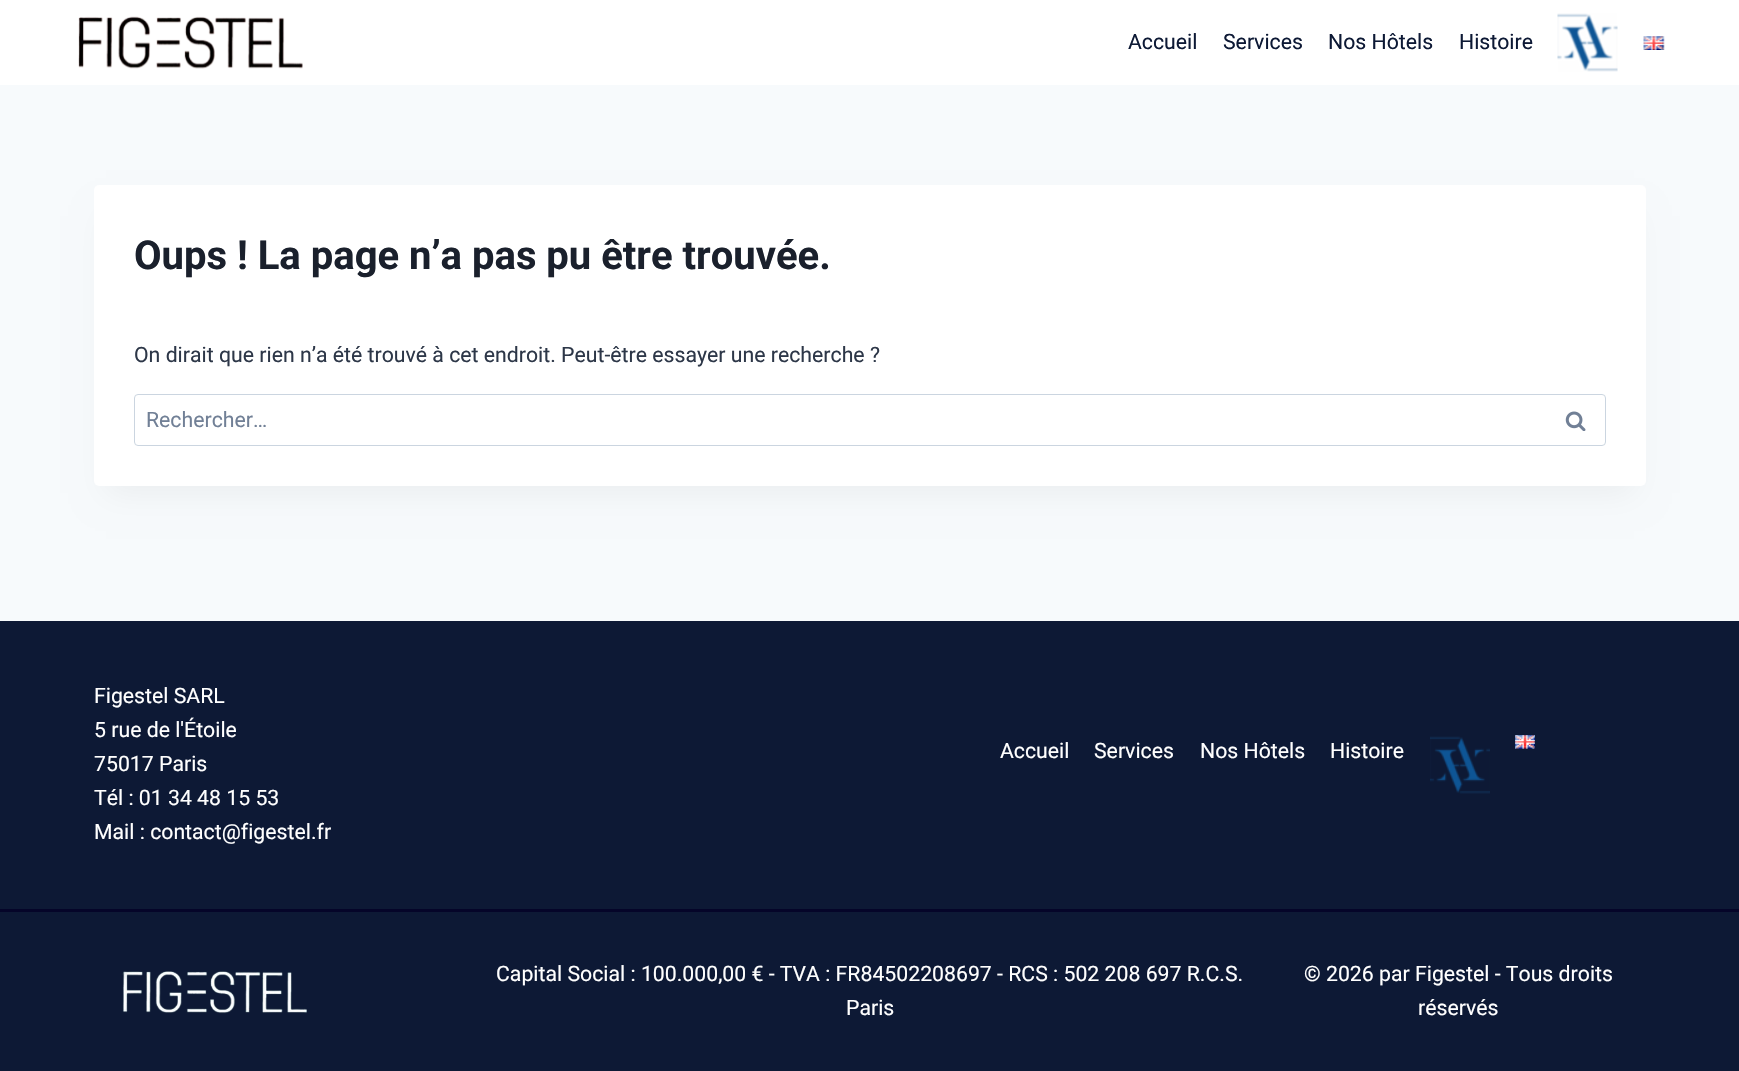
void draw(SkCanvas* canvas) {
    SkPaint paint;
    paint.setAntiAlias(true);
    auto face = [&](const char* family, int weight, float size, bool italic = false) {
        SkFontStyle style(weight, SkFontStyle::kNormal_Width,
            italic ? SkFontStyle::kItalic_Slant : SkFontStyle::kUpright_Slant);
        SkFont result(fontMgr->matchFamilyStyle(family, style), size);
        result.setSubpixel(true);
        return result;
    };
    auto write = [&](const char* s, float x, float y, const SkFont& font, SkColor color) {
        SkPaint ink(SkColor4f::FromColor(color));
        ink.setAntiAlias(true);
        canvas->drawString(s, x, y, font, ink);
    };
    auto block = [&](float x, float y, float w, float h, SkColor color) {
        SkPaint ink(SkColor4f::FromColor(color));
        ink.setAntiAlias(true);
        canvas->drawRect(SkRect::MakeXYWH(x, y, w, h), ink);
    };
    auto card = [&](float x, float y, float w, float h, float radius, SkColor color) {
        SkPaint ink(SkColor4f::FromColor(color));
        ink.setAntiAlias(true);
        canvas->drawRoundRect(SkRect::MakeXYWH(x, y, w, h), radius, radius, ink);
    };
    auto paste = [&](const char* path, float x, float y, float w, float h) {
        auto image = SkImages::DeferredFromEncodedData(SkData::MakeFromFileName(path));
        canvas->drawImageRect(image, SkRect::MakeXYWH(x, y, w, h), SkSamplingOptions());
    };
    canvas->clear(SkColorSetRGB(247, 250, 252));
    block(0, 0, 1739, 85, SK_ColorWHITE);
    paste("pic1.png", 78, 16, 225, 53);
    auto kFont1 = face("Roboto", 400, 21.25f);
    write("Accueil", 1128, 49, kFont1, SkColorSetRGB(13, 25, 53));
    write("Services", 1223, 49, kFont1, SkColorSetRGB(13, 25, 53));
    write("Nos Hôtels", 1328, 49, kFont1, SkColorSetRGB(13, 25, 53));
    write("Histoire", 1459, 49, kFont1, SkColorSetRGB(13, 25, 53));
    paste("pic2.png", 1557, 13, 61, 59);
    paste("pic3.png", 1643, 36, 22, 14);
    paint.setColor(SkColorSetARGB(13, 0, 0, 0));
    paint.setMaskFilter(SkMaskFilter::MakeBlur(kNormal_SkBlurStyle, 15.5f));
    canvas->drawRect(SkRect::MakeXYWH(106, 216, 1528, 277), paint);
    paint.setMaskFilter(nullptr);
    card(94, 185, 1552, 301, 5, SK_ColorWHITE);
    auto kFont2 = face("Roboto", 700, 40);
    write("Oups ! La page n’a pas pu être trouvée.", 134, 269, kFont2, SkColorSetRGB(26, 32, 44));
    write("On dirait que rien n’a été trouvé à cet endroit. Peut-être essayer une recherche ?", 134, 362, kFont1, SkColorSetRGB(45, 55, 72));
    paint.setStyle(SkPaint::kStroke_Style);
    paint.setStrokeWidth(1);
    paint.setColor(SkColorSetRGB(203, 213, 224));
    canvas->drawRoundRect(SkRect::MakeXYWH(134.5f, 394.5f, 1471, 51), 3.5f, 3.5f, paint);
    write("Rechercher…", 146, 427, kFont1, SkColorSetRGB(113, 128, 150));
    paste("pic4.png", 1565, 411, 21, 20);
    block(0, 621, 1739, 450, SkColorSetRGB(13, 25, 53));
    write("Figestel SARL", 94, 703, kFont1, SK_ColorWHITE);
    write("5 rue de l'Étoile", 94, 737, kFont1, SK_ColorWHITE);
    write("75017 Paris", 94, 771, kFont1, SK_ColorWHITE);
    write("Tél : 01 34 48 15 53", 94, 805, kFont1, SK_ColorWHITE);
    write("Mail : contact@figestel.fr", 94, 839, kFont1, SK_ColorWHITE);
    write("Accueil", 1000, 758, kFont1, SK_ColorWHITE);
    write("Services", 1094, 758, kFont1, SK_ColorWHITE);
    write("Nos Hôtels", 1200, 758, kFont1, SK_ColorWHITE);
    write("Histoire", 1330, 758, kFont1, SK_ColorWHITE);
    paste("pic5.png", 1430, 736, 60, 58);
    paste("pic6.png", 1515, 735, 20, 14);
    block(0, 909, 1739, 3, SkColorSetRGB(5, 5, 41));
    paste("pic7.png", 122, 971, 185, 43);
    write("Capital Social : 100.000,00 € - TVA : FR84502208697 - RCS : 502 208 697 R.C.S.", 496, 981, kFont1, SK_ColorWHITE);
    write("Paris", 846, 1015, kFont1, SK_ColorWHITE);
    write("© 2026 par Figestel - Tous droits", 1304, 981, kFont1, SK_ColorWHITE);
    write("réservés", 1418, 1015, kFont1, SK_ColorWHITE);
}
